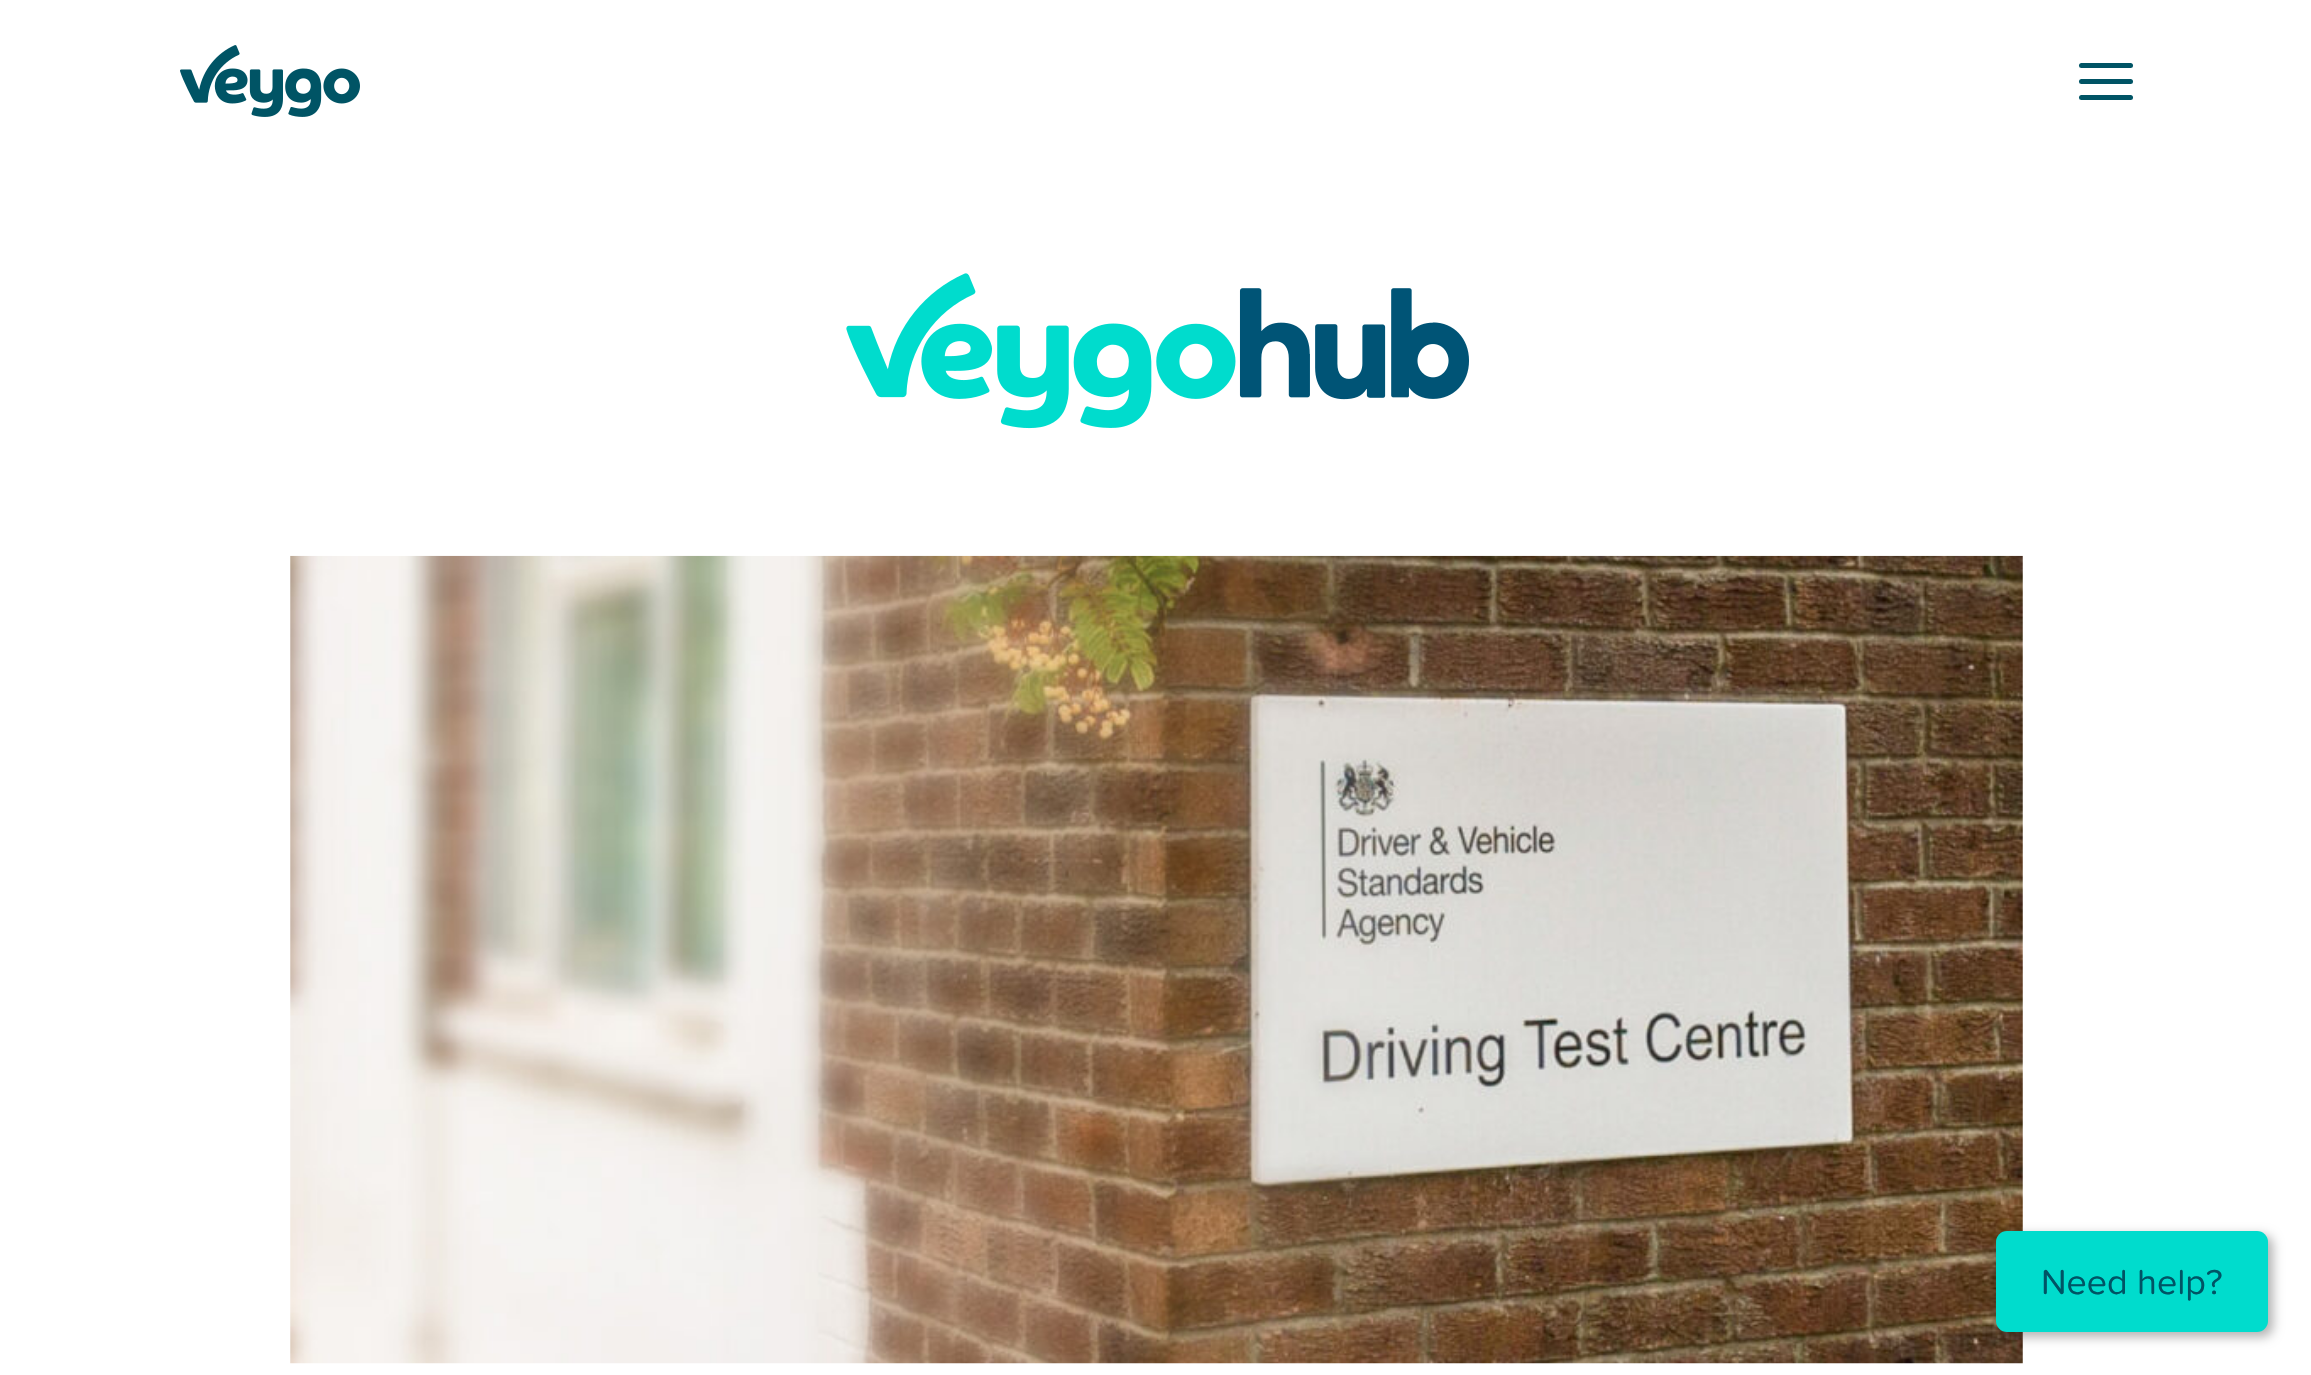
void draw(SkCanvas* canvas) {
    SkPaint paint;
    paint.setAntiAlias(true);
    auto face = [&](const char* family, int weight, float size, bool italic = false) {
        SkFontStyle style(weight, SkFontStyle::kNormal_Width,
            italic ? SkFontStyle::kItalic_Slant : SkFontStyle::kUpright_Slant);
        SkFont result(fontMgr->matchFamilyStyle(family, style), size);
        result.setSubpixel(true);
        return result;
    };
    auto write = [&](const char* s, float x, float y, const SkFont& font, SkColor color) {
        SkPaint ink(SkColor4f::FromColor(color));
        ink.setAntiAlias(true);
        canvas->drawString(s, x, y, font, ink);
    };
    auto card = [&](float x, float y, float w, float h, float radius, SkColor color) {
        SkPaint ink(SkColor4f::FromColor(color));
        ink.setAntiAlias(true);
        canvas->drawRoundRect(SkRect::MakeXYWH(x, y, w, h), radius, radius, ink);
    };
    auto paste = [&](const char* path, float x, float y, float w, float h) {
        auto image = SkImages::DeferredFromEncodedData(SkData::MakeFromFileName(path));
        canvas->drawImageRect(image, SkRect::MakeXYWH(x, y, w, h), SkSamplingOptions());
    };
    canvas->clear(SK_ColorWHITE);
    paste("pic1.png", 180, 45, 180, 72);
    card(2079, 63, 54, 5, 2.5f, SkColorSetRGB(0, 84, 101));
    card(2079, 79, 54, 5, 2.5f, SkColorSetRGB(0, 84, 101));
    card(2079, 95, 54, 5, 2.5f, SkColorSetRGB(0, 84, 101));
    paste("pic2.png", 846, 273, 623, 156);
    paste("pic3.png", 290, 555, 1733, 809);
    paint.setColor(SkColorSetARGB(77, 0, 0, 0));
    paint.setMaskFilter(SkMaskFilter::MakeBlur(kNormal_SkBlurStyle, 5.5f));
    canvas->drawRoundRect(SkRect::MakeXYWH(2000, 1235, 273, 102), 11, 11, paint);
    paint.setMaskFilter(nullptr);
    card(1996, 1231, 272, 101, 11, SkColorSetRGB(0, 220, 205));
    auto kFont1 = face("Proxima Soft", 400, 36);
    write("Need help?", 2041, 1294, kFont1, SkColorSetRGB(0, 84, 101));
}
